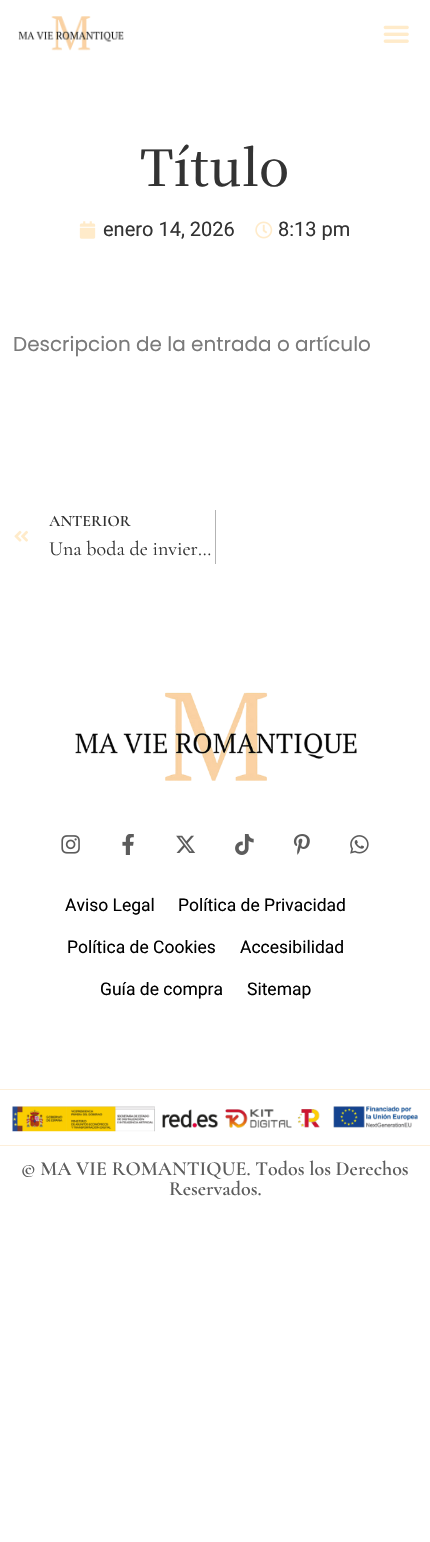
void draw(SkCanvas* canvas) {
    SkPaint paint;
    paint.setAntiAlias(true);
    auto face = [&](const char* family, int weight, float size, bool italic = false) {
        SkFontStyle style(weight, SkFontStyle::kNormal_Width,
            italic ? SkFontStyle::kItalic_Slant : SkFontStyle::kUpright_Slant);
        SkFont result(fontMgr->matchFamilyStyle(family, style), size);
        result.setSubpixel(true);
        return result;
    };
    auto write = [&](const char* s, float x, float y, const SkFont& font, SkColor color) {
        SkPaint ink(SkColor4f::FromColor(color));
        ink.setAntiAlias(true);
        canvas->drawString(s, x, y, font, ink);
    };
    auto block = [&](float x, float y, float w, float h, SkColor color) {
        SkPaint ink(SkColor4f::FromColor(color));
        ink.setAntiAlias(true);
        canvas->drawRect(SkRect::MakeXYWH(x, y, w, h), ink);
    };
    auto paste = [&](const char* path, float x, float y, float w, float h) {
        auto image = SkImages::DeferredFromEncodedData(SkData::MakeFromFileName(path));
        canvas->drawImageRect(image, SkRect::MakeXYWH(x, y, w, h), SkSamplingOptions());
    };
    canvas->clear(SK_ColorWHITE);
    paste("pic1.png", 18, 16, 106, 35);
    paste("pic2.png", 383, 25, 26, 18);
    auto kFont1 = face("Noto Serif KR", 500, 50);
    write("Título", 140, 186, kFont1, SkColorSetRGB(51, 51, 51));
    paste("pic3.png", 79, 221, 17, 18);
    auto kFont2 = face("Roboto", 400, 20);
    write("enero 14, 2026", 103, 236, kFont2, SkColorSetRGB(51, 51, 51));
    paste("pic4.png", 255, 221, 18, 18);
    write("8:13 pm", 278, 236, kFont2, SkColorSetRGB(51, 51, 51));
    auto kFont3 = face("Poppins", 400, 20);
    write("Descripcion de la entrada o artículo", 13, 351, kFont3, SkColorSetRGB(122, 122, 122));
    paste("pic5.png", 14, 530, 14, 12);
    auto kFont4 = face("Cormorant Garamond", 600, 16);
    write("ANTERIOR", 49, 526, kFont4, SkColorSetRGB(51, 51, 51));
    auto kFont5 = face("Cormorant Garamond", 400, 20);
    write("Una boda de invier…", 49, 555, kFont5, SkColorSetRGB(51, 51, 51));
    block(215, 510, 1, 54, SkColorSetRGB(179, 179, 179));
    paste("pic6.png", 75, 692, 282, 89);
    paste("pic7.png", 61, 835, 19, 19);
    paste("pic8.png", 122, 834, 12, 21);
    paste("pic9.png", 176, 835, 20, 18);
    paste("pic10.png", 235, 834, 19, 21);
    paste("pic11.png", 293, 834, 17, 21);
    paste("pic12.png", 350, 835, 19, 19);
    auto kFont6 = face("Roboto", 400, 17.5f);
    write("Aviso Legal", 65, 911, kFont6, SK_ColorBLACK);
    write("Política de Privacidad", 178, 911, kFont6, SK_ColorBLACK);
    write("Política de Cookies", 67, 953, kFont6, SK_ColorBLACK);
    write("Accesibilidad", 240, 953, kFont6, SK_ColorBLACK);
    write("Guía de compra", 100, 995, kFont6, SK_ColorBLACK);
    write("Sitemap", 247, 995, kFont6, SK_ColorBLACK);
    block(0, 1089, 430, 1, SkColorSetRGB(253, 239, 218));
    paste("pic13.png", 12, 1106, 406, 26);
    block(0, 1145, 430, 1, SkColorSetRGB(253, 239, 218));
    auto kFont7 = face("Cormorant Garamond", 600, 20);
    write("© MA VIE ROMANTIQUE. Todos los Derechos", 21, 1175, kFont7, SkColorSetRGB(92, 92, 92));
    write("Reservados.", 169, 1195, kFont7, SkColorSetRGB(92, 92, 92));
}
